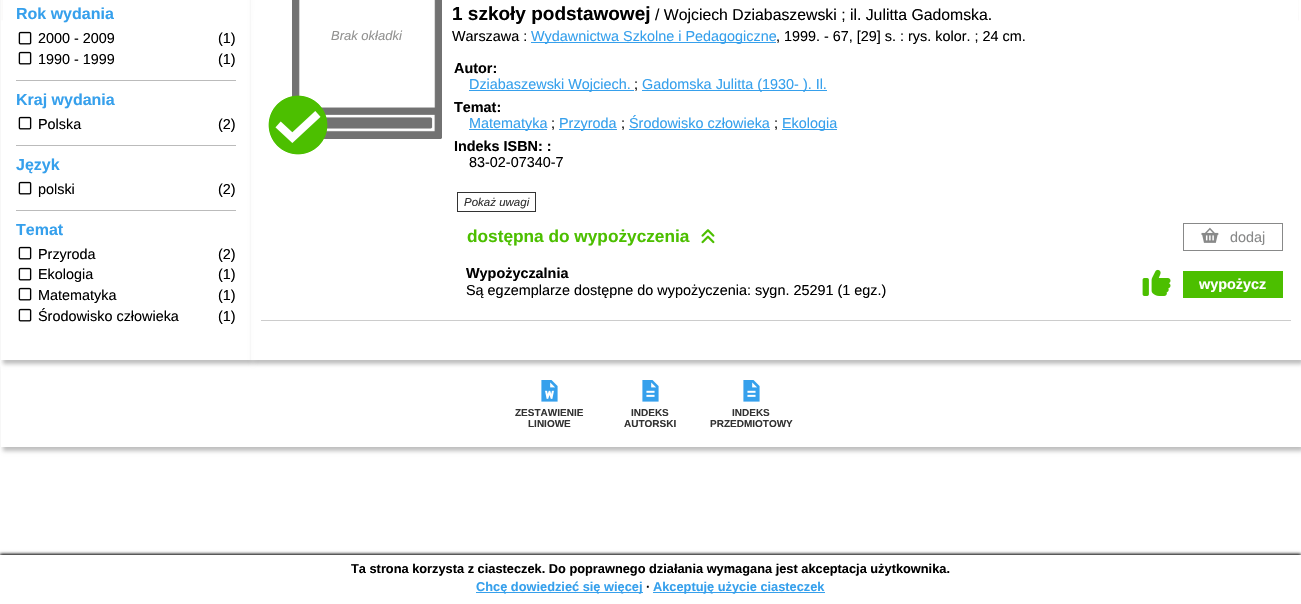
void draw(SkCanvas* canvas) {
    SkPaint paint;
    paint.setAntiAlias(true);
    auto face = [&](const char* family, int weight, float size, bool italic = false) {
        SkFontStyle style(weight, SkFontStyle::kNormal_Width,
            italic ? SkFontStyle::kItalic_Slant : SkFontStyle::kUpright_Slant);
        SkFont result(fontMgr->matchFamilyStyle(family, style), size);
        result.setSubpixel(true);
        return result;
    };
    auto write = [&](const char* s, float x, float y, const SkFont& font, SkColor color) {
        SkPaint ink(SkColor4f::FromColor(color));
        ink.setAntiAlias(true);
        canvas->drawString(s, x, y, font, ink);
    };
    auto block = [&](float x, float y, float w, float h, SkColor color) {
        SkPaint ink(SkColor4f::FromColor(color));
        ink.setAntiAlias(true);
        canvas->drawRect(SkRect::MakeXYWH(x, y, w, h), ink);
    };
    auto paste = [&](const char* path, float x, float y, float w, float h) {
        auto image = SkImages::DeferredFromEncodedData(SkData::MakeFromFileName(path));
        canvas->drawImageRect(image, SkRect::MakeXYWH(x, y, w, h), SkSamplingOptions());
    };
    canvas->clear(SK_ColorWHITE);
    paste("pic1.png", 1, 0, 1299, 21);
    canvas->save();
    canvas->clipPath(SkPathBuilder(SkPathFillType::kEvenOdd).moveTo(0, 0).lineTo(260, 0).lineTo(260, 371).lineTo(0, 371).close().moveTo(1, -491).lineTo(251, -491).lineTo(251, 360).lineTo(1, 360).close().detach(), true);
    paint.setColor(SkColorSetARGB(64, 0, 0, 0));
    paint.setMaskFilter(SkMaskFilter::MakeBlur(kNormal_SkBlurStyle, 2));
    canvas->drawRect(SkRect::MakeXYWH(3, -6, 250, 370), paint);
    paint.setMaskFilter(nullptr);
    canvas->restore();
    block(1, 0, 250, 21, SkColorSetARGB(242, 255, 255, 255));
    block(16, 80, 220, 1, SkColorSetRGB(187, 187, 187));
    auto kFont1 = face("Liberation Sans", 700, 16);
    write("Rok wydania", 16, 19, kFont1, SkColorSetRGB(54, 160, 236));
    paste("pic2.png", 18, 31, 14, 14);
    auto kFont2 = face("Liberation Sans", 400, 14.4f);
    write("2000 - 2009", 38, 43, kFont2, SK_ColorBLACK);
    write("(1)", 218, 43, kFont2, SK_ColorBLACK);
    paste("pic2.png", 18, 51, 14, 14);
    write("1990 - 1999", 38, 64, kFont2, SK_ColorBLACK);
    write("(1)", 218, 64, kFont2, SK_ColorBLACK);
    block(16, 145, 220, 1, SkColorSetRGB(187, 187, 187));
    write("Kraj wydania", 16, 105, kFont1, SkColorSetRGB(54, 160, 236));
    paste("pic2.png", 18, 116, 14, 14);
    write("Polska", 38, 129, kFont2, SK_ColorBLACK);
    write("(2)", 218, 129, kFont2, SK_ColorBLACK);
    block(16, 210, 220, 1, SkColorSetRGB(187, 187, 187));
    write("Język", 16, 170, kFont1, SkColorSetRGB(54, 160, 236));
    paste("pic2.png", 18, 181, 14, 14);
    write("polski", 38, 194, kFont2, SK_ColorBLACK);
    write("(2)", 218, 194, kFont2, SK_ColorBLACK);
    write("Temat", 16, 235, kFont1, SkColorSetRGB(54, 160, 236));
    paste("pic2.png", 18, 246, 14, 14);
    write("Przyroda", 38, 259, kFont2, SK_ColorBLACK);
    write("(2)", 218, 259, kFont2, SK_ColorBLACK);
    paste("pic2.png", 18, 267, 14, 14);
    write("Ekologia", 38, 279, kFont2, SK_ColorBLACK);
    write("(1)", 218, 279, kFont2, SK_ColorBLACK);
    paste("pic2.png", 18, 287, 14, 14);
    write("Matematyka", 38, 300, kFont2, SK_ColorBLACK);
    write("(1)", 218, 300, kFont2, SK_ColorBLACK);
    paste("pic2.png", 18, 308, 14, 14);
    write("Środowisko człowieka", 38, 321, kFont2, SK_ColorBLACK);
    write("(1)", 218, 321, kFont2, SK_ColorBLACK);
    canvas->save();
    canvas->clipPath(SkPathBuilder(SkPathFillType::kEvenOdd).moveTo(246, 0).lineTo(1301, 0).lineTo(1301, 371).lineTo(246, 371).close().moveTo(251, -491).lineTo(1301, -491).lineTo(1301, 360).lineTo(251, 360).close().detach(), true);
    paint.setMaskFilter(SkMaskFilter::MakeBlur(kNormal_SkBlurStyle, 2));
    canvas->drawRect(SkRect::MakeXYWH(253, -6, 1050, 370), paint);
    paint.setMaskFilter(nullptr);
    canvas->restore();
    block(251, 0, 1049, 360, SkColorSetARGB(242, 255, 255, 255));
    block(261, 320, 1030, 1, SkColorSetRGB(204, 204, 204));
    paste("pic3.png", 292, 0, 150, 139);
    auto kFont3 = face("Liberation Sans", 400, 13, true);
    write("Brak okładki", 331, 40, kFont3, SkColorSetRGB(146, 146, 145));
    paste("pic4.png", 268, 95, 60, 60);
    auto kFont4 = face("Liberation Sans", 700, 19);
    write("1 szkoły podstawowej", 452, 20, kFont4, SK_ColorBLACK);
    auto kFont5 = face("Liberation Sans", 400, 15.8f);
    write("/ Wojciech Dziabaszewski ; il. Julitta Gadomska.", 655, 20, kFont5, SK_ColorBLACK);
    write("Warszawa :", 452, 41, kFont2, SK_ColorBLACK);
    block(531, 42, 245, 1, SkColorSetRGB(54, 160, 236));
    write("Wydawnictwa Szkolne i Pedagogiczne", 531, 41, kFont2, SkColorSetRGB(54, 160, 236));
    write(", 1999. - 67, [29] s. : rys. kolor. ; 24 cm.", 776, 41, kFont2, SK_ColorBLACK);
    auto kFont6 = face("Liberation Sans", 700, 14.4f);
    write("Autor:", 454, 73, kFont6, SK_ColorBLACK);
    block(469, 90, 165, 1, SkColorSetRGB(54, 160, 236));
    write("Dziabaszewski Wojciech.", 469, 89, kFont2, SkColorSetRGB(54, 160, 236));
    write(";", 634, 89, kFont2, SK_ColorBLACK);
    block(642, 90, 185, 1, SkColorSetRGB(54, 160, 236));
    write("Gadomska Julitta (1930- ). Il.", 642, 89, kFont2, SkColorSetRGB(54, 160, 236));
    write("Temat:", 454, 112, kFont6, SK_ColorBLACK);
    block(469, 129, 78, 1, SkColorSetRGB(54, 160, 236));
    write("Matematyka", 469, 128, kFont2, SkColorSetRGB(54, 160, 236));
    write(";", 551, 128, kFont2, SK_ColorBLACK);
    block(559, 129, 58, 1, SkColorSetRGB(54, 160, 236));
    write("Przyroda", 559, 128, kFont2, SkColorSetRGB(54, 160, 236));
    write(";", 621, 128, kFont2, SK_ColorBLACK);
    write("Środowisko człowieka", 629, 128, kFont2, SkColorSetRGB(54, 160, 236));
    write(";", 774, 128, kFont2, SK_ColorBLACK);
    block(629, 129, 141, 1, SkColorSetRGB(54, 160, 236));
    block(782, 129, 55, 1, SkColorSetRGB(54, 160, 236));
    write("Ekologia", 782, 128, kFont2, SkColorSetRGB(54, 160, 236));
    write("Indeks ISBN: :", 454, 151, kFont6, SK_ColorBLACK);
    write("83-02-07340-7", 469, 167, kFont2, SK_ColorBLACK);
    paint.setStyle(SkPaint::kStroke_Style);
    paint.setStrokeWidth(1);
    paint.setColor(SkColorSetRGB(51, 51, 51));
    canvas->drawRect(SkRect::MakeXYWH(457.5f, 192.5f, 78, 19), paint);
    auto kFont7 = face("Liberation Sans", 400, 11.5f, true);
    write("Pokaż uwagi", 464, 206, kFont7, SkColorSetRGB(51, 51, 51));
    auto kFont8 = face("Liberation Sans", 700, 17.25f);
    write("dostępna do wypożyczenia", 467, 242, kFont8, SkColorSetRGB(76, 191, 0));
    paste("pic5.png", 701, 229, 14, 15);
    paint.setColor(SkColorSetRGB(136, 137, 137));
    canvas->drawRect(SkRect::MakeXYWH(1183.5f, 223.5f, 99, 27), paint);
    paste("pic6.png", 1201, 227, 18, 16);
    write("dodaj", 1230, 242, kFont2, SkColorSetRGB(136, 137, 137));
    write("Wypożyczalnia", 466, 278, kFont6, SK_ColorBLACK);
    write("Są egzemplarze dostępne do wypożyczenia: sygn. 25291 (1 egz.)", 466, 295, kFont2, SK_ColorBLACK);
    paste("pic7.png", 1142, 269, 29, 27);
    block(1183, 271, 100, 27, SkColorSetRGB(76, 191, 0));
    write("wypożycz", 1199, 289, kFont6, SK_ColorWHITE);
    canvas->save();
    canvas->clipPath(SkPathBuilder(SkPathFillType::kEvenOdd).moveTo(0, 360).lineTo(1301, 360).lineTo(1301, 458).lineTo(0, 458).close().moveTo(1, 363).lineTo(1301, 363).lineTo(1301, 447).lineTo(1, 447).close().detach(), true);
    paint.setStyle(SkPaint::kFill_Style);
    paint.setColor(SkColorSetARGB(64, 0, 0, 0));
    paint.setMaskFilter(SkMaskFilter::MakeBlur(kNormal_SkBlurStyle, 2));
    canvas->drawRect(SkRect::MakeXYWH(3, 367, 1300, 84), paint);
    paint.setMaskFilter(nullptr);
    canvas->restore();
    paste("pic8.png", 541, 380, 17, 22);
    auto kFont9 = face("Liberation Sans", 700, 10);
    write("ZESTAWIENIE", 515, 416, kFont9, SkColorSetRGB(51, 51, 51));
    write("LINIOWE", 528, 427, kFont9, SkColorSetRGB(51, 51, 51));
    paste("pic9.png", 642, 380, 17, 22);
    write("INDEKS", 631, 416, kFont9, SkColorSetRGB(51, 51, 51));
    write("AUTORSKI", 624, 427, kFont9, SkColorSetRGB(51, 51, 51));
    paste("pic9.png", 743, 380, 17, 22);
    write("INDEKS", 732, 416, kFont9, SkColorSetRGB(51, 51, 51));
    write("PRZEDMIOTOWY", 710, 427, kFont9, SkColorSetRGB(51, 51, 51));
    paint.setColor(SkColorSetARGB(166, 0, 0, 0));
    paint.setMaskFilter(SkMaskFilter::MakeBlur(kNormal_SkBlurStyle, 3));
    canvas->drawRect(SkRect::MakeXYWH(0, 558, 1301, 44), paint);
    paint.setMaskFilter(nullptr);
    paint.setColor(SK_ColorBLACK);
    paint.setMaskFilter(SkMaskFilter::MakeBlur(kNormal_SkBlurStyle, 1.5f));
    canvas->drawRect(SkRect::MakeXYWH(0, 554, 1301, 49), paint);
    paint.setMaskFilter(nullptr);
    block(0, 555, 1301, 49, SK_ColorWHITE);
    auto kFont10 = face("Liberation Sans", 700, 12.8f);
    write("Ta strona korzysta z ciasteczek. Do poprawnego działania wymagana jest akceptacja użytkownika.", 351, 573, kFont10, SK_ColorBLACK);
    block(476, 592, 167, 1, SkColorSetRGB(54, 160, 236));
    write("Chcę dowiedzieć się więcej", 476, 591, kFont10, SkColorSetRGB(54, 160, 236));
    write("∙", 646, 591, kFont10, SK_ColorBLACK);
    block(653, 592, 172, 1, SkColorSetRGB(54, 160, 236));
    write("Akceptuję użycie ciasteczek", 653, 591, kFont10, SkColorSetRGB(54, 160, 236));
}
